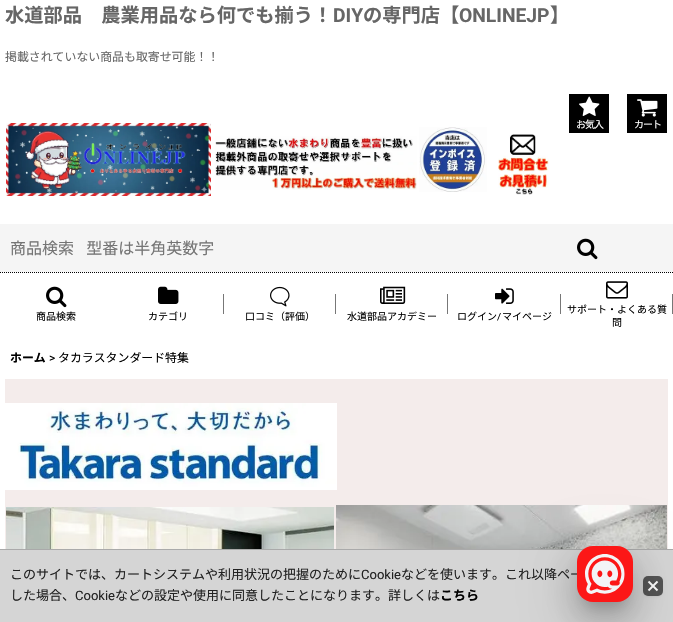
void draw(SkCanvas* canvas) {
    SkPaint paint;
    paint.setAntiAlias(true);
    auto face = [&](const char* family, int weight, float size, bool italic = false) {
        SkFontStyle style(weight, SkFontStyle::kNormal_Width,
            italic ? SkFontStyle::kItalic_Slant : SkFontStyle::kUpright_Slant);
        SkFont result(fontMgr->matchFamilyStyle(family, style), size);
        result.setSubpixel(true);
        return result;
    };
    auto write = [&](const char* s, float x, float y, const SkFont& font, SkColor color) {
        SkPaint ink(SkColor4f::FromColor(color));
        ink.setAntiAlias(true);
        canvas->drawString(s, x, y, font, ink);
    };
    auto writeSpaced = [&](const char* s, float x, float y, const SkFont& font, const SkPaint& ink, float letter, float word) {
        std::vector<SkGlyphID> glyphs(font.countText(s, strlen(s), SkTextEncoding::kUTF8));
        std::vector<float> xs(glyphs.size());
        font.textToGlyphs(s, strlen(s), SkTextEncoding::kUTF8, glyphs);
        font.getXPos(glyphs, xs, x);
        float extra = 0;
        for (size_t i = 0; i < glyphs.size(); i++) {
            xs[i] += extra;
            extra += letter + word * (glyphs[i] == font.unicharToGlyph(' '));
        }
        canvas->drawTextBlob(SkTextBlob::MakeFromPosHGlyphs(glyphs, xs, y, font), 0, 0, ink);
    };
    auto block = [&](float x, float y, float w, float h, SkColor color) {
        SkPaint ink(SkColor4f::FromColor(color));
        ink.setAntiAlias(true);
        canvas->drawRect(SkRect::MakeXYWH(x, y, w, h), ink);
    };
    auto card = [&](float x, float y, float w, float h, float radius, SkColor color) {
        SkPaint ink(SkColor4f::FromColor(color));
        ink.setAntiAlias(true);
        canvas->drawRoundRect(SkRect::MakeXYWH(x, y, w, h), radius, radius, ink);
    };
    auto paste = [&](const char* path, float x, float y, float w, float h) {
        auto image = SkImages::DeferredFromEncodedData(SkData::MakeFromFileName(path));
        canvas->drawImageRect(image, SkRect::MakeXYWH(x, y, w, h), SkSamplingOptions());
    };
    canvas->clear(SK_ColorWHITE);
    auto kFont1 = face("Noto Sans JP", 700, 19.25f);
    write("水道部品　農業用品なら何でも揃う！", 5, 22, kFont1, SkColorSetRGB(102, 102, 102));
    auto kFont2 = face("Roboto", 700, 19.25f);
    write("DIY", 333, 22, kFont2, SkColorSetRGB(102, 102, 102));
    write("の専門店【", 363, 22, kFont1, SkColorSetRGB(102, 102, 102));
    write("ONLINEJP", 459, 22, kFont2, SkColorSetRGB(102, 102, 102));
    write("】", 550, 22, kFont1, SkColorSetRGB(102, 102, 102));
    auto kFont3 = face("Noto Sans JP", 400, 11.9f);
    write("掲載されていない商品も取寄せ可能！！", 5, 61, kFont3, SkColorSetRGB(102, 102, 102));
    paint.setStyle(SkPaint::kStroke_Style);
    paint.setStrokeWidth(1);
    paint.setColor(SK_ColorBLACK);
    paint.setPathEffect(SkDashPathEffect::Make({{1, 1}}, 0));
    canvas->drawPath(SkPathBuilder().moveTo(0, 272.5f).lineTo(673, 272.5f).detach(), paint);
    paint.setPathEffect(nullptr);
    paste("pic1.png", 6, 123, 205, 73);
    paste("pic2.png", 215, 136, 202, 54);
    paste("pic3.png", 419, 127, 68, 65);
    paste("pic4.png", 498, 134, 51, 61);
    block(569, 94, 40, 39, SK_ColorBLACK);
    paste("pic5.png", 579, 96, 21, 20);
    auto kFont4 = face("Noto Sans JP", 400, 10);
    paint.setStyle(SkPaint::kFill_Style);
    paint.setColor(SK_ColorWHITE);
    writeSpaced("お気入", 576, 128, kFont4, paint, -1, 0);
    block(627, 94, 40, 39, SK_ColorBLACK);
    paste("pic6.png", 637, 99, 21, 18);
    writeSpaced("カート", 634, 128, kFont4, paint, -1, 0);
    block(0, 224, 673, 48, SkColorSetRGB(245, 245, 245));
    auto kFont5 = face("Noto Sans JP", 400, 16);
    paint.setColor(SkColorSetRGB(117, 117, 117));
    writeSpaced("商品検索   型番は半角英数字", 10, 254, kFont5, paint, 0, 0.5f);
    paste("pic7.png", 577, 238, 21, 22);
    paste("pic8.png", 46, 286, 21, 22);
    write("商品検索", 36, 320, kFont4, SK_ColorBLACK);
    block(223, 294, 1, 20, SkColorSetRGB(119, 119, 119));
    paste("pic9.png", 158, 286, 21, 18);
    write("カテゴリ", 148, 320, kFont4, SK_ColorBLACK);
    block(335, 294, 1, 20, SkColorSetRGB(119, 119, 119));
    paste("pic10.png", 270, 286, 20, 21);
    write("口コミ（評価）", 245, 320, kFont4, SK_ColorBLACK);
    block(447, 294, 1, 20, SkColorSetRGB(119, 119, 119));
    paste("pic11.png", 380, 286, 26, 18);
    write("水道部品アカデミー", 347, 320, kFont4, SK_ColorBLACK);
    block(560, 294, 1, 20, SkColorSetRGB(119, 119, 119));
    paste("pic12.png", 495, 288, 19, 16);
    write("ログイン", 457, 320, kFont4, SK_ColorBLACK);
    auto kFont6 = face("Roboto", 400, 10);
    write("/", 497, 320, kFont6, SK_ColorBLACK);
    write("マイページ", 502, 320, kFont4, SK_ColorBLACK);
    block(672, 294, 1, 20, SkColorSetRGB(119, 119, 119));
    paste("pic13.png", 606, 281, 22, 18);
    write("サポート・よくある質", 567, 313, kFont4, SK_ColorBLACK);
    write("問", 612, 326, kFont4, SK_ColorBLACK);
    auto kFont7 = face("Noto Sans JP", 700, 11.9f);
    write("ホーム", 10, 362, kFont7, SK_ColorBLACK);
    auto kFont8 = face("Roboto", 400, 11.9f);
    write(">", 49, 362, kFont8, SK_ColorBLACK);
    write("タカラスタンダード特集", 58, 362, kFont3, SK_ColorBLACK);
    block(5, 379, 663, 170, SkColorSetRGB(244, 236, 235));
    paste("pic14.png", 5, 403, 332, 87);
    paste("pic15.png", 6, 507, 328, 42);
    paste("pic16.png", 336, 505, 331, 44);
    block(0, 550, 673, 72, SkColorSetRGB(213, 213, 213));
    block(0, 549, 673, 1, SkColorSetRGB(170, 170, 170));
    auto kFont9 = face("Noto Sans JP", 400, 13);
    write("このサイトでは、カートシステムや利用状況の把握のために", 10, 579, kFont9, SkColorSetRGB(34, 34, 34));
    auto kFont10 = face("Roboto", 400, 13);
    write("Cookie", 361, 579, kFont10, SkColorSetRGB(34, 34, 34));
    write("などを使います。これ以降ペー", 401, 579, kFont9, SkColorSetRGB(34, 34, 34));
    paint.setColor(SkColorSetARGB(13, 0, 0, 0));
    paint.setMaskFilter(SkMaskFilter::MakeBlur(kNormal_SkBlurStyle, 1));
    canvas->drawRoundRect(SkRect::MakeXYWH(643, 577, 20, 20), 5, 5, paint);
    paint.setMaskFilter(nullptr);
    paste("pic17.png", 643, 576, 20, 20);
    write("した場合、", 10, 600, kFont9, SkColorSetRGB(34, 34, 34));
    write("Cookie", 75, 600, kFont10, SkColorSetRGB(34, 34, 34));
    write("などの設定や使用に同意したことになります。詳しくは", 115, 600, kFont9, SkColorSetRGB(34, 34, 34));
    auto kFont11 = face("Noto Sans JP", 700, 13);
    write("こちら", 440, 600, kFont11, SK_ColorBLACK);
    paint.setColor(SkColorSetARGB(51, 0, 0, 0));
    paint.setMaskFilter(SkMaskFilter::MakeBlur(kNormal_SkBlurStyle, 7.5f));
    canvas->drawRoundRect(SkRect::MakeXYWH(584, 564, 42, 42), 9, 9, paint);
    paint.setMaskFilter(nullptr);
    paint.setColor(SkColorSetARGB(36, 0, 0, 0));
    paint.setMaskFilter(SkMaskFilter::MakeBlur(kNormal_SkBlurStyle, 19));
    canvas->drawRoundRect(SkRect::MakeXYWH(574, 567, 62, 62), 19, 19, paint);
    paint.setMaskFilter(nullptr);
    paint.setColor(SkColorSetARGB(31, 0, 0, 0));
    paint.setMaskFilter(SkMaskFilter::MakeBlur(kNormal_SkBlurStyle, 23));
    canvas->drawRoundRect(SkRect::MakeXYWH(569, 547, 72, 72), 24, 24, paint);
    paint.setMaskFilter(nullptr);
    card(577, 546, 56, 56, 16, SkColorSetRGB(252, 23, 23));
    paste("pic18.png", 585, 554, 40, 40);
}
